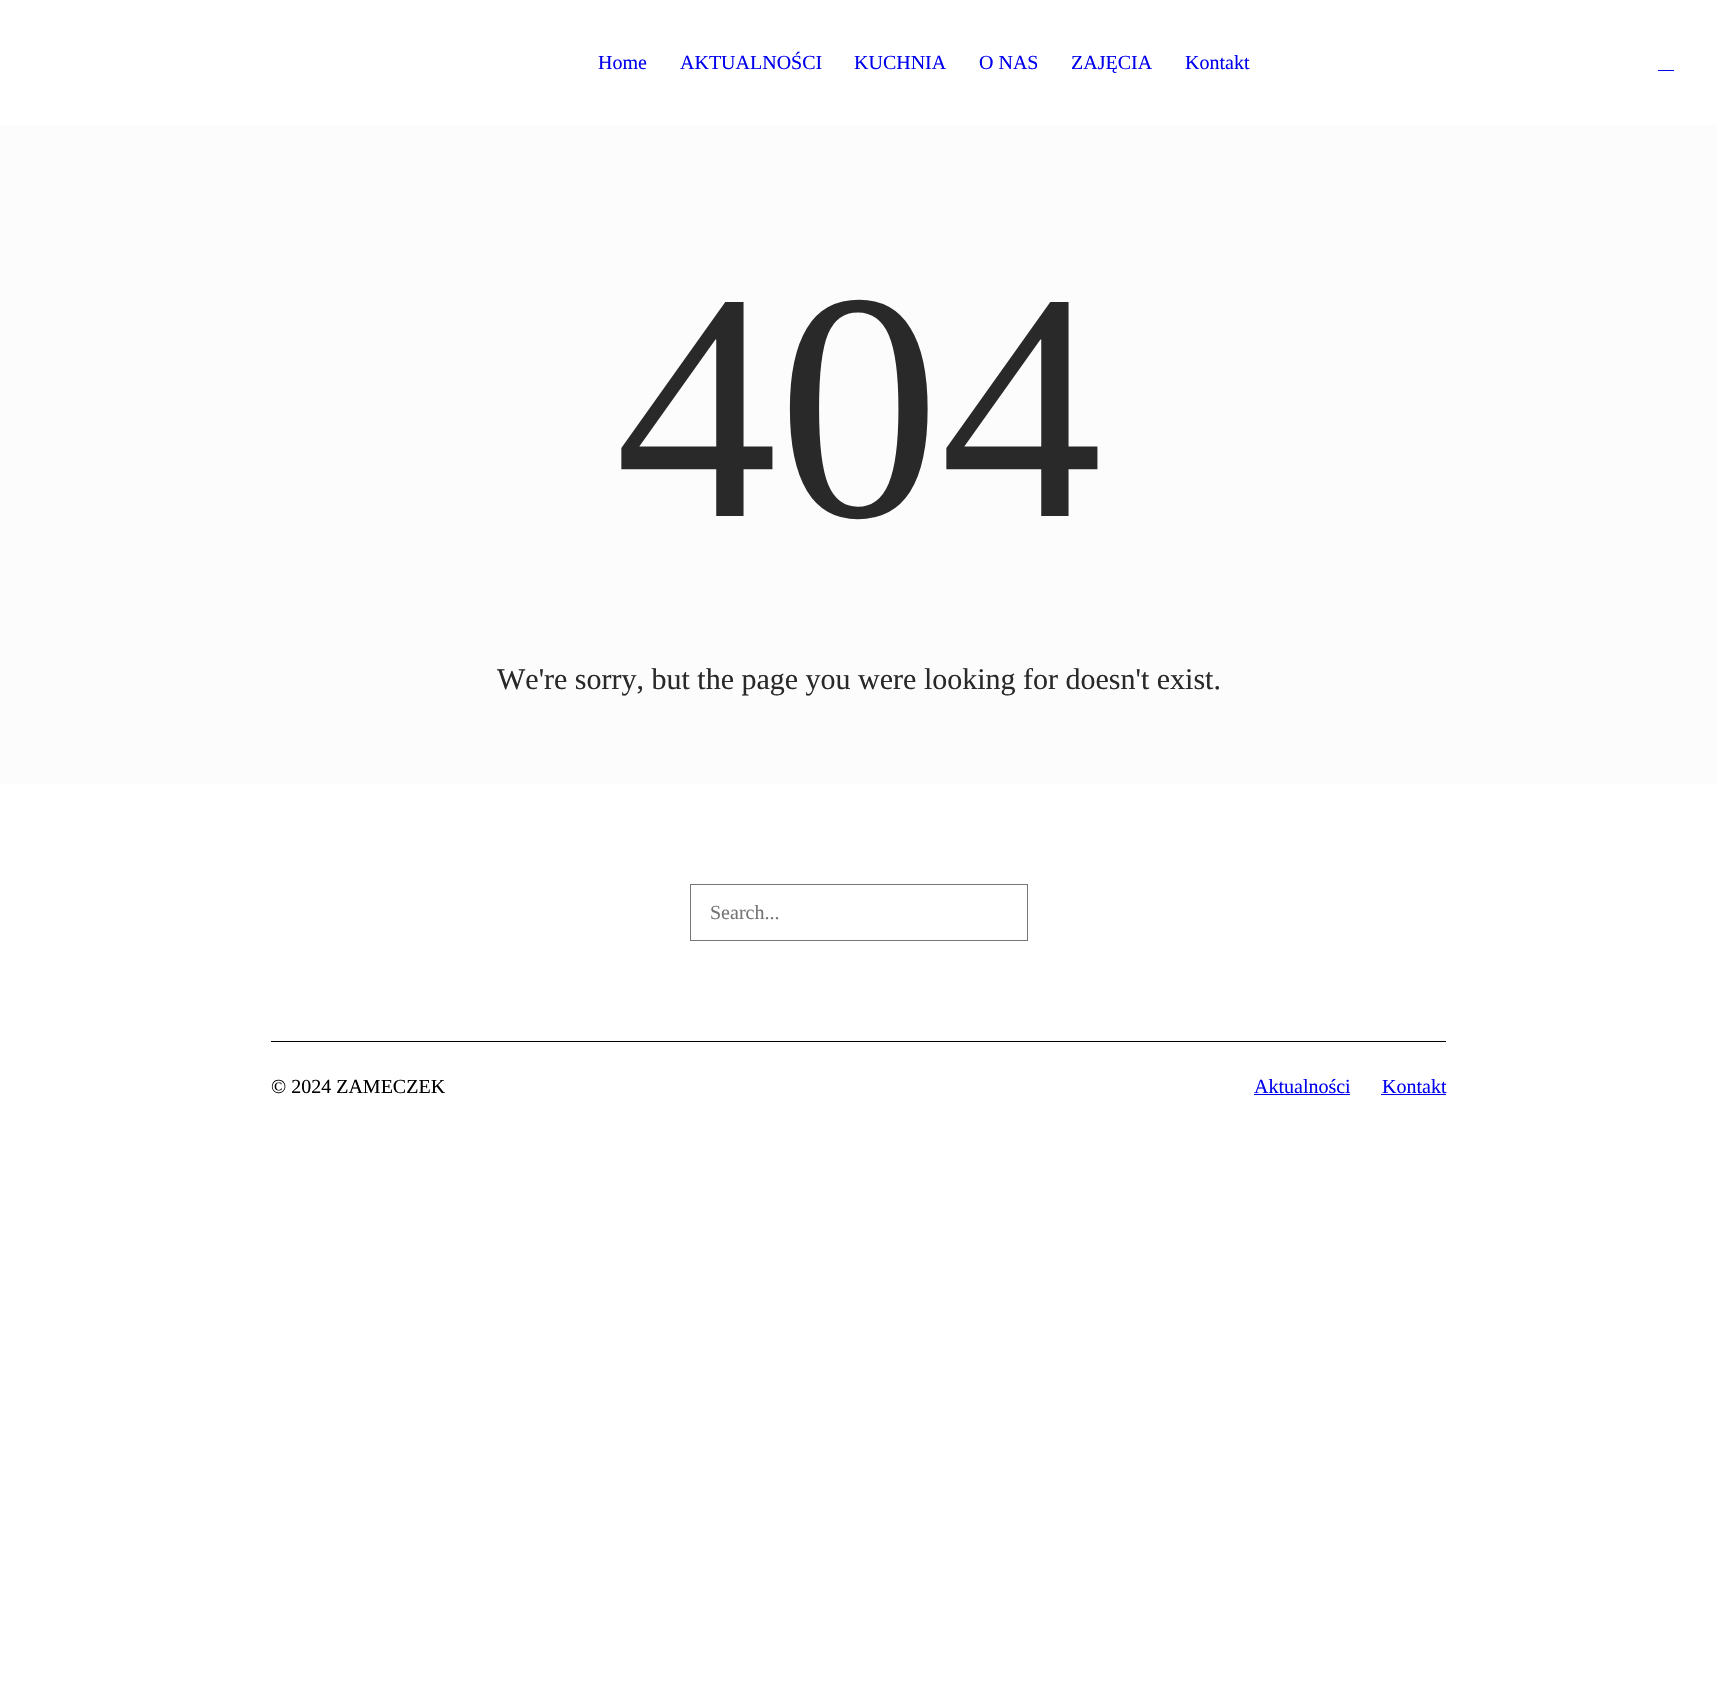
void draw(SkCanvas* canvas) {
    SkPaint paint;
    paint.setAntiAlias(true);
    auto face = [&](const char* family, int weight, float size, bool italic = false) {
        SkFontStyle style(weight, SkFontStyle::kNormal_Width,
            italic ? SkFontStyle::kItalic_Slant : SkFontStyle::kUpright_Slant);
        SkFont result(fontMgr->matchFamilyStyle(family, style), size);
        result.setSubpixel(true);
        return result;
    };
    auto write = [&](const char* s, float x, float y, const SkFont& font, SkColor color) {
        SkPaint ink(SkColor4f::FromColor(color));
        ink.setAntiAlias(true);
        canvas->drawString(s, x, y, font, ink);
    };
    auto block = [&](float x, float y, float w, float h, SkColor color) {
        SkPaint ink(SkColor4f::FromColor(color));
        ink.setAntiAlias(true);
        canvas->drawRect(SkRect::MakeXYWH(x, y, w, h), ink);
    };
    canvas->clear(SK_ColorWHITE);
    auto kFont1 = face("Liberation Serif", 400, 20);
    write("Home", 598, 69, kFont1, SkColorSetRGB(0, 0, 238));
    write("AKTUALNOŚCI", 680, 69, kFont1, SkColorSetRGB(0, 0, 238));
    write("KUCHNIA", 854, 69, kFont1, SkColorSetRGB(0, 0, 238));
    write("O NAS", 979, 69, kFont1, SkColorSetRGB(0, 0, 238));
    write("ZAJĘCIA", 1071, 69, kFont1, SkColorSetRGB(0, 0, 238));
    write("Kontakt", 1185, 69, kFont1, SkColorSetRGB(0, 0, 238));
    block(1658, 70, 16, 1, SkColorSetRGB(0, 0, 238));
    block(0, 125, 1717, 659, SkColorSetRGB(252, 252, 252));
    auto kFont2 = face("Liberation Serif", 400, 325);
    write("404", 615, 516, kFont2, SkColorSetRGB(41, 41, 41));
    auto kFont3 = face("Liberation Serif", 400, 30);
    write("We're sorry, but the page you were looking for doesn't exist.", 497, 689, kFont3, SkColorSetRGB(41, 41, 41));
    paint.setStyle(SkPaint::kStroke_Style);
    paint.setStrokeWidth(1);
    paint.setColor(SkColorSetRGB(118, 118, 118));
    canvas->drawRect(SkRect::MakeXYWH(690.5f, 884.5f, 337, 56), paint);
    write("Search...", 710, 919, kFont1, SkColorSetRGB(117, 117, 117));
    block(271, 1041, 1175, 1, SK_ColorBLACK);
    write("© 2024 ZAMECZEK", 271, 1093, kFont1, SK_ColorBLACK);
    write("Aktualności", 1254, 1093, kFont1, SkColorSetRGB(0, 0, 238));
    block(1254, 1094, 96, 1, SkColorSetRGB(0, 0, 238));
    write("Kontakt", 1382, 1093, kFont1, SkColorSetRGB(0, 0, 238));
    block(1381, 1094, 65, 1, SkColorSetRGB(0, 0, 238));
}
